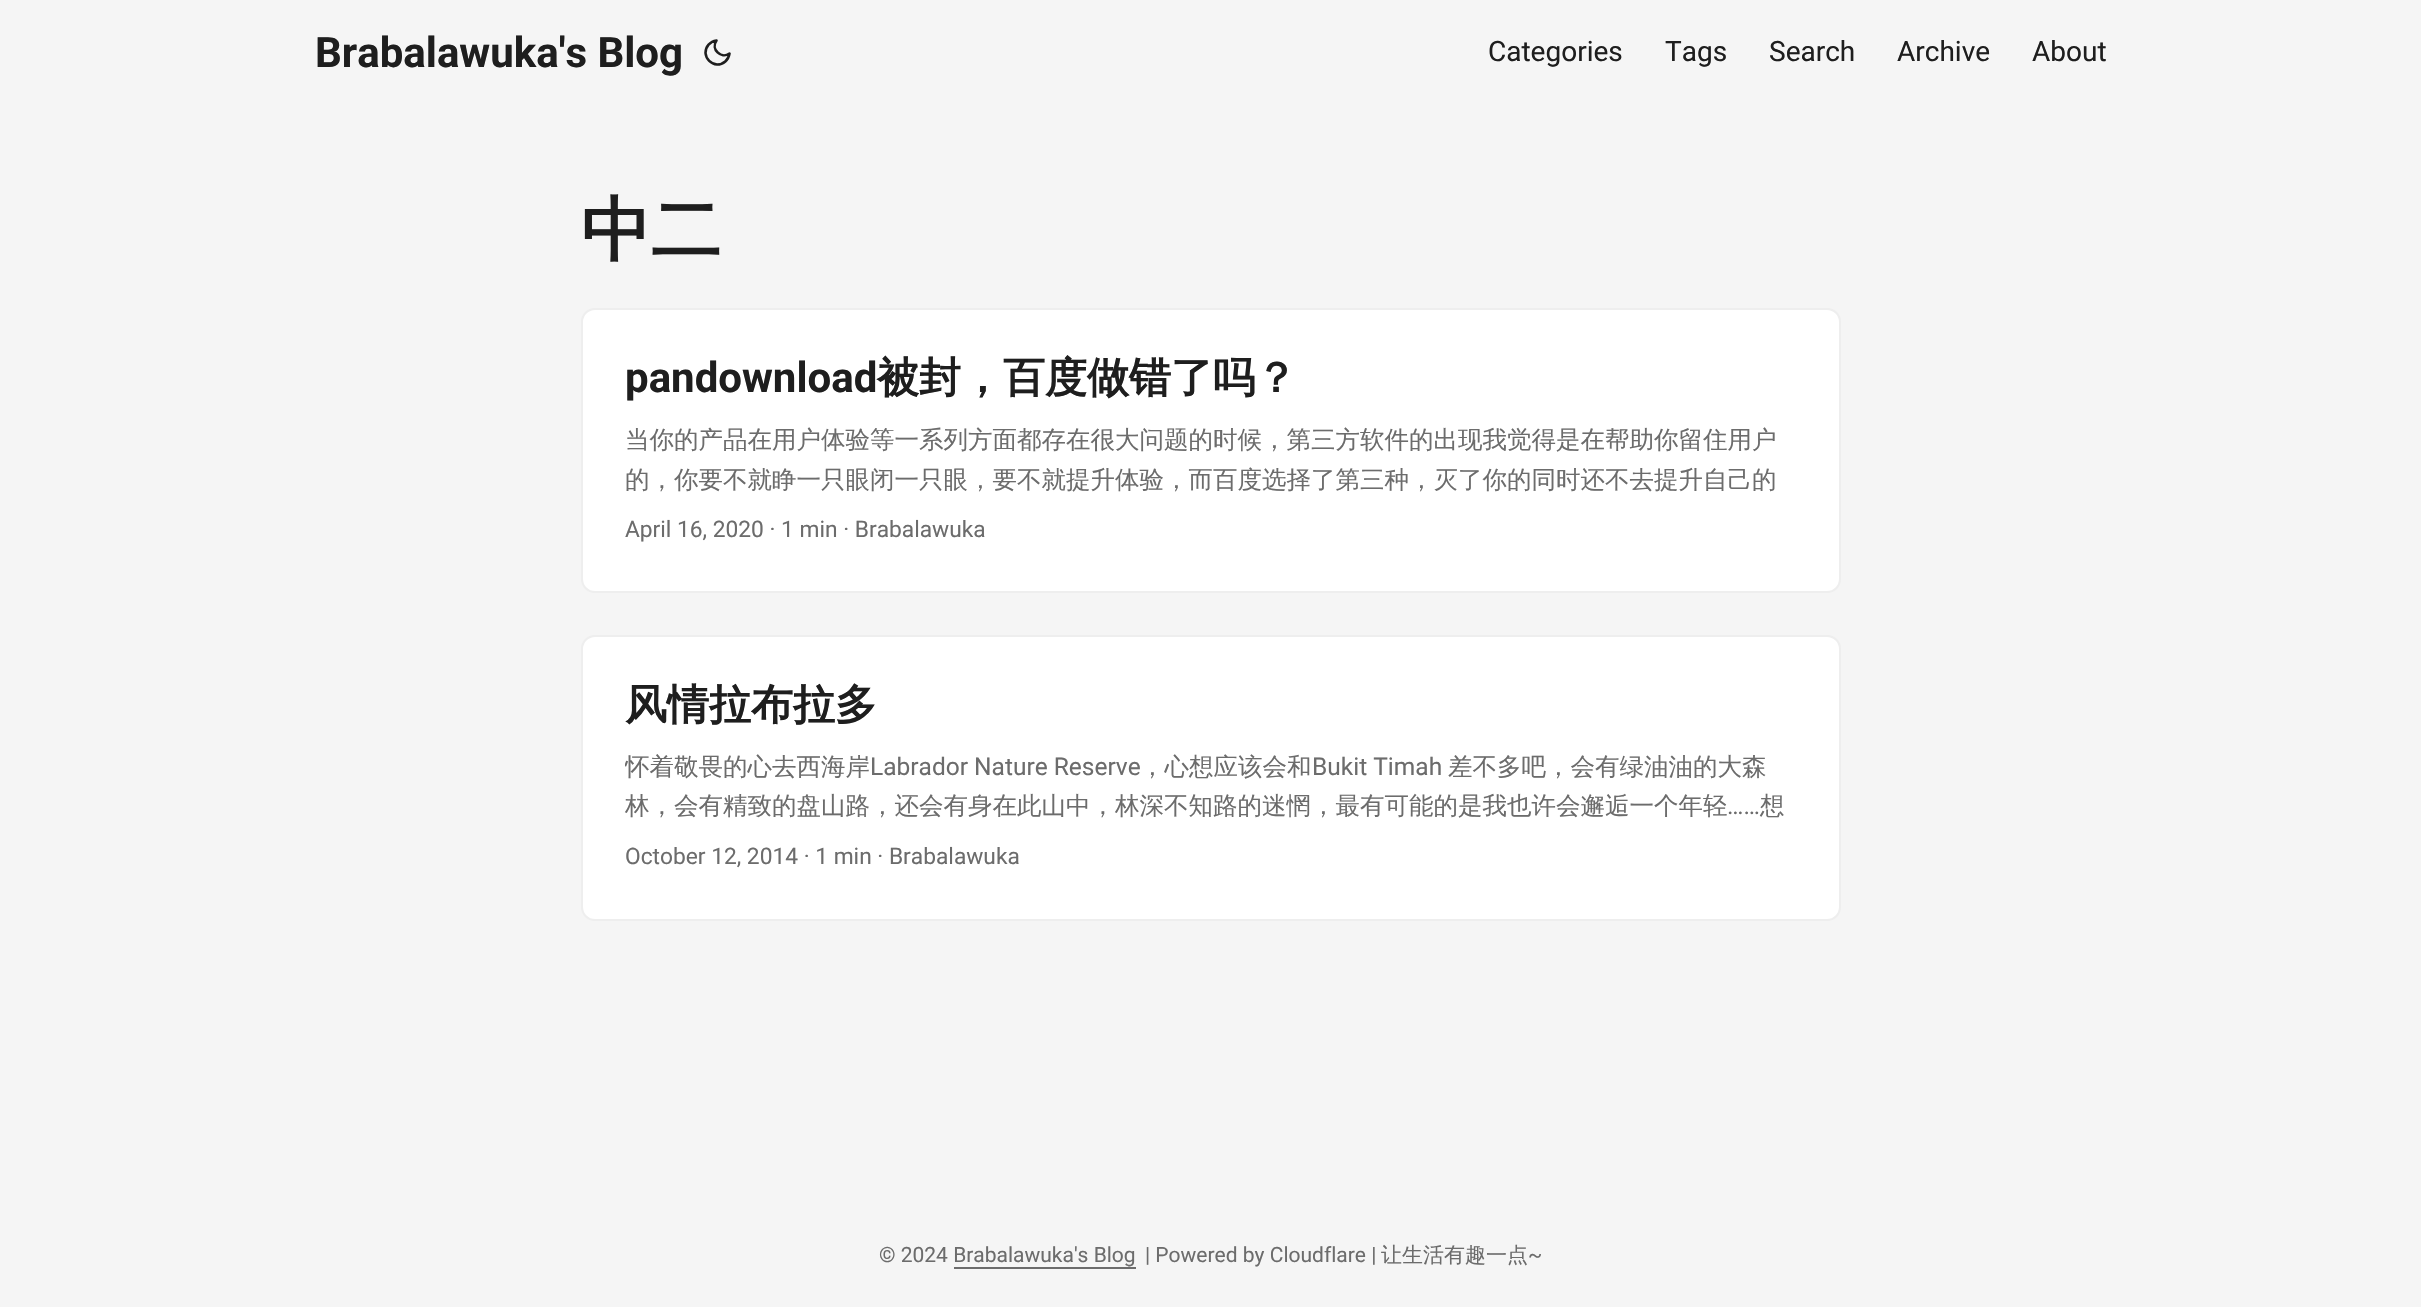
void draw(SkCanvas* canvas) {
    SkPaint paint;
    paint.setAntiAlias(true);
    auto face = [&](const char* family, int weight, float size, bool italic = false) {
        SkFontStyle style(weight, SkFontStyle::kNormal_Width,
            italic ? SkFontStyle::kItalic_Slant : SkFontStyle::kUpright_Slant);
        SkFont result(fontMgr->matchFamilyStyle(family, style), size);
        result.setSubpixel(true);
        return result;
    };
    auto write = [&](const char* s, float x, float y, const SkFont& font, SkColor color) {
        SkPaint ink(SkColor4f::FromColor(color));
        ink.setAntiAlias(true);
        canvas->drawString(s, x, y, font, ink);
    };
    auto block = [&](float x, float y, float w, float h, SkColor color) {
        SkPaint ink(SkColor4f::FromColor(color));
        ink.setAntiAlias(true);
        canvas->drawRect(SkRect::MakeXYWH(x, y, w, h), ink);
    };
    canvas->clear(SkColorSetRGB(245, 245, 245));
    auto kFont1 = face("Roboto", 700, 42);
    write("Brabalawuka's Blog", 315, 67, kFont1, SkColorSetRGB(30, 30, 30));
    paint.setStyle(SkPaint::kStroke_Style);
    paint.setStrokeWidth(2.6f);
    paint.setStrokeCap(SkPaint::kRound_Cap);
    paint.setStrokeJoin(SkPaint::kRound_Join);
    paint.setColor(SkColorSetRGB(30, 30, 30));
    canvas->drawPath(SkPathBuilder().moveTo(729.5f, 53.5f).cubicTo(728.5f, 60, 723.5f, 64.5f, 717, 64.5f).cubicTo(711, 64, 706, 59, 705.5f, 53).cubicTo(705.5f, 46.5f, 710, 41.5f, 716.5f, 40.5f).cubicTo(710.5f, 49, 721, 59.5f, 729.5f, 53.5f).close().detach(), paint);
    auto kFont2 = face("Roboto", 400, 28);
    write("Categories", 1488, 61, kFont2, SkColorSetRGB(30, 30, 30));
    write("Tags", 1665, 61, kFont2, SkColorSetRGB(30, 30, 30));
    write("Search", 1769, 61, kFont2, SkColorSetRGB(30, 30, 30));
    write("Archive", 1897, 61, kFont2, SkColorSetRGB(30, 30, 30));
    write("About", 2032, 61, kFont2, SkColorSetRGB(30, 30, 30));
    auto kFont3 = face("WenQuanYi Zen Hei", 700, 70);
    write("中二", 581, 254, kFont3, SkColorSetRGB(30, 30, 30));
    paint.setStyle(SkPaint::kFill_Style);
    paint.setColor(SK_ColorWHITE);
    canvas->drawRoundRect(SkRect::MakeXYWH(582, 309, 1258, 283), 13, 13, paint);
    paint.setStyle(SkPaint::kStroke_Style);
    paint.setStrokeWidth(2);
    paint.setStrokeCap(SkPaint::kButt_Cap);
    paint.setStrokeJoin(SkPaint::kMiter_Join);
    paint.setColor(SkColorSetRGB(238, 238, 238));
    canvas->drawRoundRect(SkRect::MakeXYWH(582, 309, 1258, 283), 13, 13, paint);
    write("pandownload", 625, 392, kFont1, SkColorSetRGB(30, 30, 30));
    auto kFont4 = face("WenQuanYi Zen Hei", 700, 42);
    write("被封，百度做错了吗？", 877, 392, kFont4, SkColorSetRGB(30, 30, 30));
    auto kFont5 = face("WenQuanYi Zen Hei", 500, 24.5f);
    write("当你的产品在用户体验等一系列方面都存在很大问题的时候，第三方软件的出现我觉得是在帮助你留住用户", 625, 448, kFont5, SkColorSetRGB(108, 108, 108));
    write("的，你要不就睁一只眼闭一只眼，要不就提升体验，而百度选择了第三种，灭了你的同时还不去提升自己的", 625, 488, kFont5, SkColorSetRGB(108, 108, 108));
    auto kFont6 = face("Roboto", 400, 22.75f);
    write("April 16, 2020 · 1 min · Brabalawuka", 625, 537, kFont6, SkColorSetRGB(108, 108, 108));
    paint.setStyle(SkPaint::kFill_Style);
    paint.setColor(SK_ColorWHITE);
    canvas->drawRoundRect(SkRect::MakeXYWH(582, 636, 1258, 284), 13, 13, paint);
    paint.setStyle(SkPaint::kStroke_Style);
    paint.setColor(SkColorSetRGB(238, 238, 238));
    canvas->drawRoundRect(SkRect::MakeXYWH(582, 636, 1258, 284), 13, 13, paint);
    write("风情拉布拉多", 625, 719, kFont4, SkColorSetRGB(30, 30, 30));
    canvas->save();
    canvas->clipRect(SkRect::MakeXYWH(625, 747, 1172, 79));
    write("怀着敬畏的心去西海岸", 625, 775, kFont5, SkColorSetRGB(108, 108, 108));
    canvas->restore();
    auto kFont7 = face("Roboto", 400, 24.5f);
    write("Labrador Nature Reserve", 870, 775, kFont7, SkColorSetRGB(108, 108, 108));
    write("，心想应该会和", 1140, 775, kFont5, SkColorSetRGB(108, 108, 108));
    write("Bukit Timah", 1312, 775, kFont7, SkColorSetRGB(108, 108, 108));
    write("差不多吧，会有绿油油的大森", 1448, 775, kFont5, SkColorSetRGB(108, 108, 108));
    write("林，会有精致的盘山路，还会有身在此山中，林深不知路的迷惘，最有可能的是我也许会邂逅一个年轻", 625, 814, kFont5, SkColorSetRGB(108, 108, 108));
    write("……", 1727, 814, kFont7, SkColorSetRGB(108, 108, 108));
    write("想", 1760, 814, kFont5, SkColorSetRGB(108, 108, 108));
    write("October 12, 2014 · 1 min · Brabalawuka", 625, 864, kFont6, SkColorSetRGB(108, 108, 108));
    auto kFont8 = face("Roboto", 400, 21);
    write("© 2024 Brabalawuka's Blog", 879, 1262, kFont8, SkColorSetRGB(108, 108, 108));
    block(954, 1267, 182, 2, SkColorSetRGB(108, 108, 108));
    write("| Powered by Cloudflare |", 1145, 1262, kFont8, SkColorSetRGB(108, 108, 108));
    auto kFont9 = face("WenQuanYi Zen Hei", 500, 21);
    write("让生活有趣一点", 1381, 1262, kFont9, SkColorSetRGB(108, 108, 108));
    write("~", 1528, 1262, kFont8, SkColorSetRGB(108, 108, 108));
}
